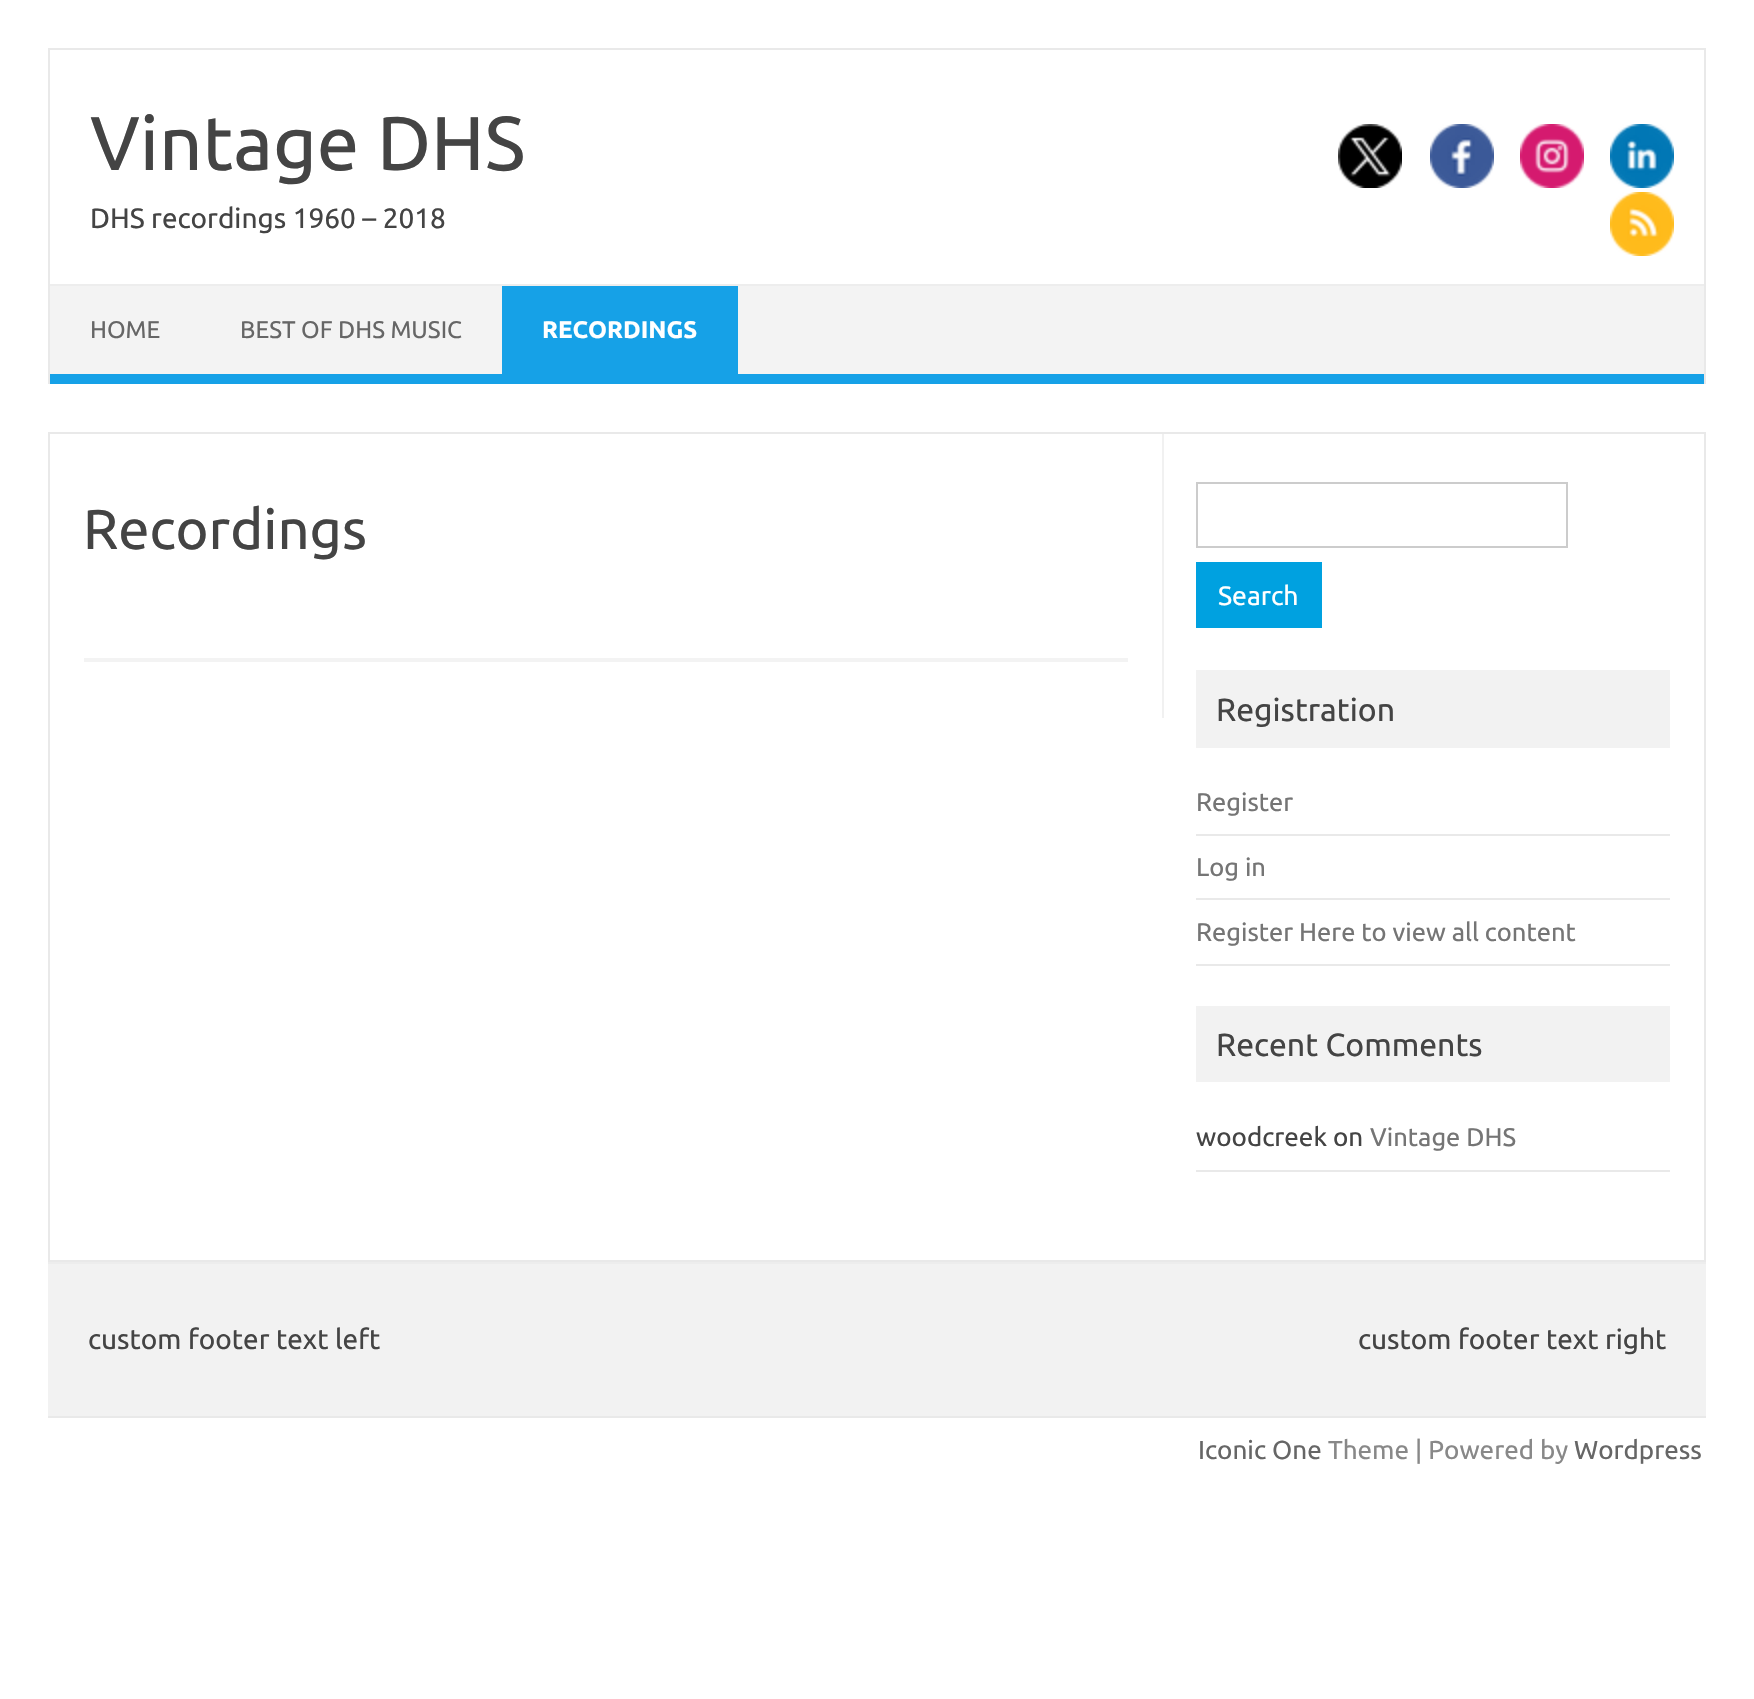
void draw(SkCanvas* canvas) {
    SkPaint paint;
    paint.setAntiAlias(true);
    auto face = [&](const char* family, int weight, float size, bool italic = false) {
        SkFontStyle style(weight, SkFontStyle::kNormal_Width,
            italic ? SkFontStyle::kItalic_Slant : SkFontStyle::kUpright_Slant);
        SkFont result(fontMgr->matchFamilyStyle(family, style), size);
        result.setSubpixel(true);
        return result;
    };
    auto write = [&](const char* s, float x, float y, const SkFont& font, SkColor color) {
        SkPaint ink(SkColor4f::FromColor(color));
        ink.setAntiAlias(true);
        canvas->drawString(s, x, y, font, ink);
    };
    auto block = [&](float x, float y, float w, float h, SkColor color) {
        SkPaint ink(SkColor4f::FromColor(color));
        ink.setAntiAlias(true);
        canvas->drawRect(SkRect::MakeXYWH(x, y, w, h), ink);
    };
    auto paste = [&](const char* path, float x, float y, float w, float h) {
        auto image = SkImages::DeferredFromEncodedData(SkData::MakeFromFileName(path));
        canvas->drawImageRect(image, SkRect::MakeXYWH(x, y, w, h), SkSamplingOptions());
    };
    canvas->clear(SK_ColorWHITE);
    block(48, 48, 1658, 2, SkColorSetRGB(233, 233, 233));
    block(1704, 48, 2, 336, SkColorSetRGB(233, 233, 233));
    block(48, 48, 2, 336, SkColorSetRGB(233, 233, 233));
    auto kFont1 = face("Ubuntu", 400, 76);
    write("Vintage DHS", 90, 170, kFont1, SkColorSetRGB(68, 68, 68));
    auto kFont2 = face("Ubuntu", 400, 28);
    write("DHS recordings 1960 – 2018", 90, 228, kFont2, SkColorSetRGB(68, 68, 68));
    paste("pic1.png", 1338, 124, 64, 64);
    paste("pic2.png", 1430, 124, 64, 64);
    paste("pic3.png", 1520, 124, 64, 64);
    paste("pic4.png", 1610, 124, 64, 64);
    paste("pic5.png", 1610, 192, 64, 64);
    block(50, 286, 1654, 88, SkColorSetRGB(243, 243, 243));
    block(50, 284, 1654, 2, SkColorSetRGB(237, 237, 237));
    block(50, 374, 1654, 10, SkColorSetRGB(22, 161, 231));
    auto kFont3 = face("Ubuntu", 400, 24);
    write("HOME", 90, 338, kFont3, SkColorSetRGB(102, 102, 102));
    write("BEST OF DHS MUSIC", 240, 338, kFont3, SkColorSetRGB(102, 102, 102));
    block(502, 286, 236, 88, SkColorSetRGB(22, 161, 231));
    auto kFont4 = face("Ubuntu", 700, 24);
    write("RECORDINGS", 542, 338, kFont4, SK_ColorWHITE);
    paint.setStyle(SkPaint::kStroke_Style);
    paint.setStrokeWidth(2);
    paint.setColor(SkColorSetRGB(233, 233, 233));
    canvas->drawRect(SkRect::MakeXYWH(49, 433, 1656, 828), paint);
    block(1162, 434, 2, 284, SkColorSetRGB(241, 241, 241));
    block(84, 658, 1044, 4, SkColorSetRGB(243, 243, 243));
    auto kFont5 = face("Ubuntu", 400, 56);
    write("Recordings", 83, 549, kFont5, SkColorSetRGB(68, 68, 68));
    paint.setColor(SkColorSetRGB(204, 204, 204));
    canvas->drawRect(SkRect::MakeXYWH(1197, 483, 370, 64), paint);
    block(1196, 562, 126, 66, SkColorSetRGB(0, 161, 224));
    auto kFont6 = face("Ubuntu", 400, 26.5f);
    write("Search", 1218, 605, kFont6, SK_ColorWHITE);
    block(1196, 670, 474, 78, SkColorSetRGB(242, 242, 242));
    auto kFont7 = face("Ubuntu", 400, 32);
    write("Registration", 1216, 721, kFont7, SkColorSetRGB(68, 68, 68));
    block(1196, 834, 474, 2, SkColorSetRGB(233, 233, 233));
    auto kFont8 = face("Ubuntu", 400, 25.5f);
    write("Register", 1196, 811, kFont8, SkColorSetRGB(117, 117, 117));
    block(1196, 898, 474, 2, SkColorSetRGB(233, 233, 233));
    write("Log in", 1196, 876, kFont8, SkColorSetRGB(117, 117, 117));
    block(1196, 964, 474, 2, SkColorSetRGB(233, 233, 233));
    write("Register Here to view all content", 1196, 941, kFont8, SkColorSetRGB(117, 117, 117));
    block(1196, 1006, 474, 76, SkColorSetRGB(242, 242, 242));
    write("Recent Comments", 1216, 1056, kFont7, SkColorSetRGB(68, 68, 68));
    block(1196, 1170, 474, 2, SkColorSetRGB(233, 233, 233));
    auto kFont9 = face("Ubuntu", 400, 26);
    write("woodcreek on", 1196, 1146, kFont9, SkColorSetRGB(68, 68, 68));
    write("Vintage DHS", 1370, 1146, kFont8, SkColorSetRGB(117, 117, 117));
    block(48, 1264, 1658, 152, SkColorSetRGB(242, 242, 242));
    block(48, 1262, 1658, 2, SkColorSetRGB(237, 237, 237));
    block(48, 1416, 1658, 2, SkColorSetRGB(233, 233, 233));
    write("custom footer text left", 88, 1349, kFont2, SkColorSetRGB(68, 68, 68));
    write("custom footer text right", 1358, 1349, kFont2, SkColorSetRGB(68, 68, 68));
    write("Iconic One", 1198, 1459, kFont9, SkColorSetRGB(102, 102, 102));
    write("Theme | Powered by", 1328, 1459, kFont9, SkColorSetRGB(136, 136, 136));
    write("Wordpress", 1574, 1459, kFont9, SkColorSetRGB(102, 102, 102));
}
